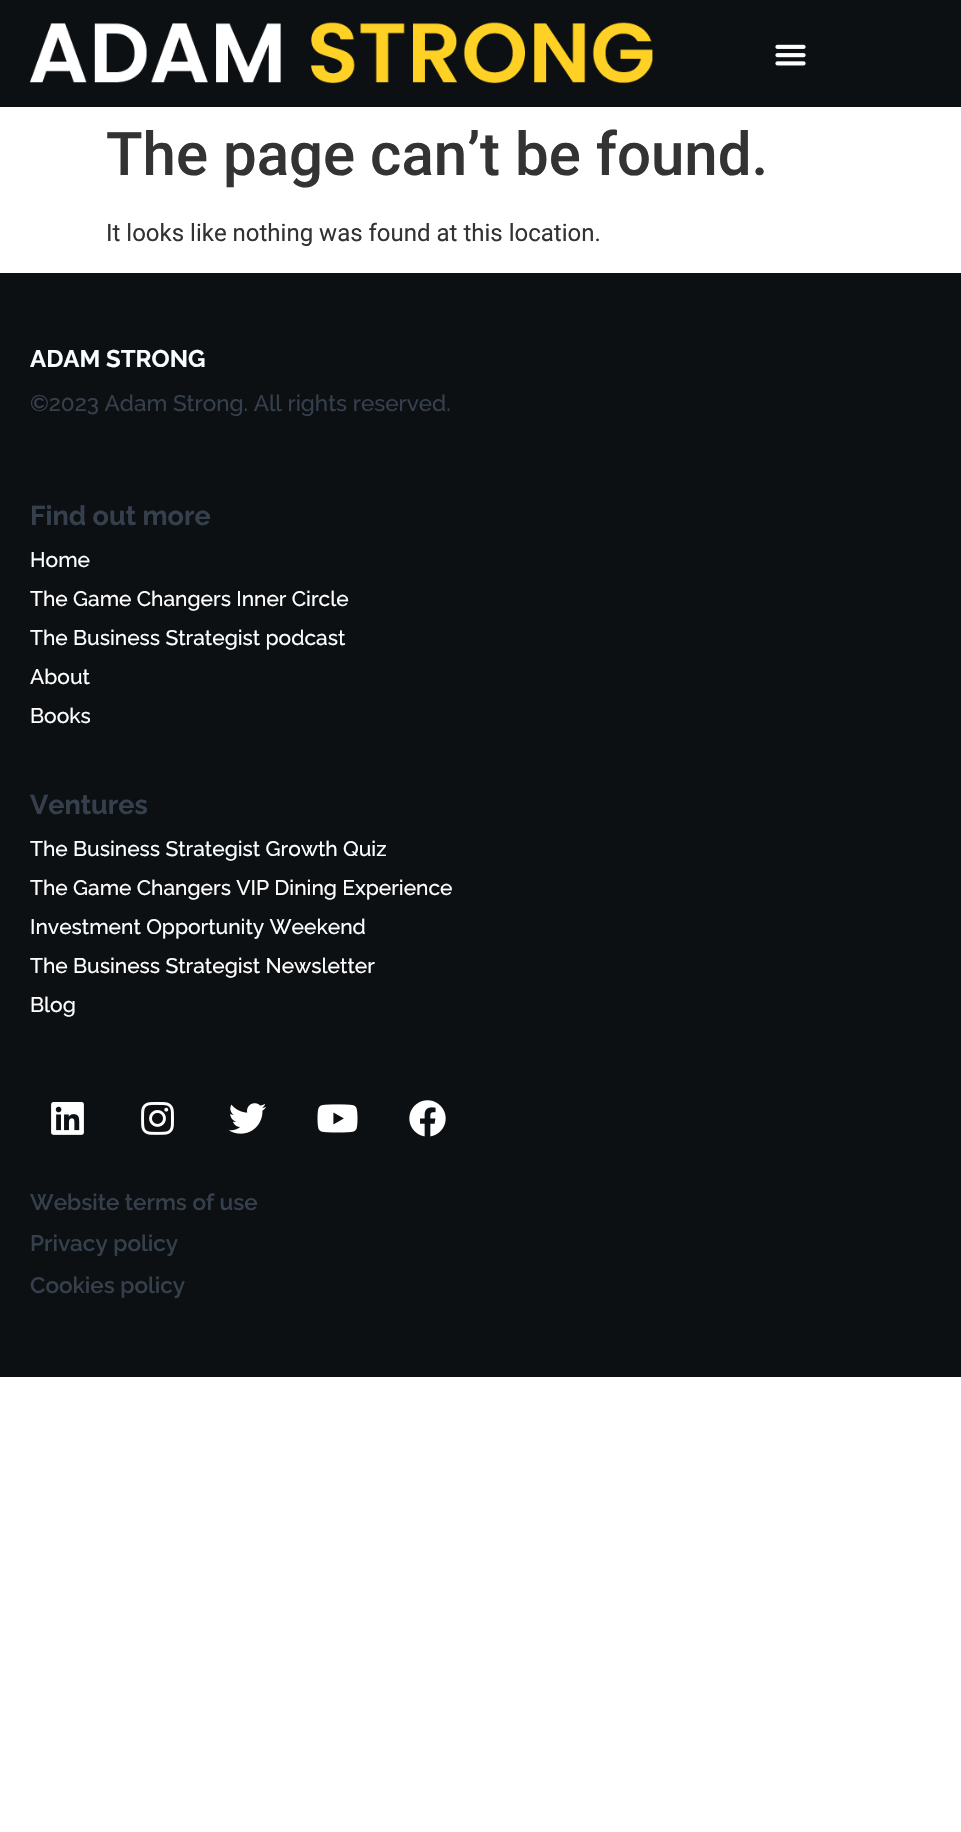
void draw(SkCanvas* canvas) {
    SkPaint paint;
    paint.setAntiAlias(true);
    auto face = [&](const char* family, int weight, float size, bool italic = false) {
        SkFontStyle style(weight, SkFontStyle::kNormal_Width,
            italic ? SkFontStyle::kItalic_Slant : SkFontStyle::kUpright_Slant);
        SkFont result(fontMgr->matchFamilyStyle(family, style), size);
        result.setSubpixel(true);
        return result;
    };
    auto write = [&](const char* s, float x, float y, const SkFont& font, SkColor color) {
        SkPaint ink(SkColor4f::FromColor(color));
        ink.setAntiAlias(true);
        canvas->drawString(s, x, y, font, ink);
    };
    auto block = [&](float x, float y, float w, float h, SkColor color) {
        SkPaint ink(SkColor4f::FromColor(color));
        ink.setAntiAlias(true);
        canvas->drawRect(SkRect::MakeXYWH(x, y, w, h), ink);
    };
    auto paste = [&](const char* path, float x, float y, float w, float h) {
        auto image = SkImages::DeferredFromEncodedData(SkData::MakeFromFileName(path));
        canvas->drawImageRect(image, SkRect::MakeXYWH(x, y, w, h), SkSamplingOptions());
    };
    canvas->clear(SK_ColorWHITE);
    block(0, 0, 961, 107, SkColorSetRGB(12, 16, 19));
    paste("pic1.png", 29, 22, 624, 62);
    paste("pic2.png", 775, 44, 31, 22);
    auto kFont1 = face("Roboto", 500, 60);
    write("The page can’t be found.", 106, 175, kFont1, SkColorSetRGB(51, 51, 51));
    auto kFont2 = face("Roboto", 400, 24);
    write("It looks like nothing was found at this location.", 106, 241, kFont2, SkColorSetRGB(51, 51, 51));
    block(0, 273, 961, 1104, SkColorSetRGB(12, 16, 19));
    auto kFont3 = face("Raleway", 700, 24);
    write("ADAM STRONG", 30, 367, kFont3, SkColorSetRGB(248, 253, 255));
    auto kFont4 = face("Raleway", 500, 22.5f);
    write("©2023 Adam Strong. All rights reserved.", 30, 411, kFont4, SkColorSetRGB(54, 63, 76));
    auto kFont5 = face("Raleway", 700, 27);
    write("Find out more", 30, 525, kFont5, SkColorSetRGB(54, 63, 76));
    auto kFont6 = face("Raleway", 500, 21);
    write("Home", 30, 567, kFont6, SK_ColorWHITE);
    write("The Game Changers Inner Circle", 30, 606, kFont6, SK_ColorWHITE);
    write("The Business Strategist podcast", 30, 645, kFont6, SK_ColorWHITE);
    write("About", 30, 684, kFont6, SK_ColorWHITE);
    write("Books", 30, 723, kFont6, SK_ColorWHITE);
    write("Ventures", 30, 814, kFont5, SkColorSetRGB(54, 63, 76));
    write("The Business Strategist Growth Quiz", 30, 856, kFont6, SK_ColorWHITE);
    write("The Game Changers VIP Dining Experience", 30, 895, kFont6, SK_ColorWHITE);
    write("Investment Opportunity Weekend", 30, 934, kFont6, SK_ColorWHITE);
    write("The Business Strategist Newsletter", 30, 973, kFont6, SK_ColorWHITE);
    write("Blog", 30, 1012, kFont6, SK_ColorWHITE);
    paste("pic3.png", 51, 1102, 33, 33);
    paste("pic4.png", 141, 1101, 33, 34);
    paste("pic5.png", 229, 1103, 38, 31);
    paste("pic6.png", 317, 1104, 41, 29);
    paste("pic7.png", 409, 1100, 37, 37);
    auto kFont7 = face("Raleway", 600, 22.5f);
    write("Website terms of use", 30, 1210, kFont7, SkColorSetRGB(54, 63, 76));
    write("Privacy policy", 30, 1251, kFont7, SkColorSetRGB(54, 63, 76));
    write("Cookies policy", 30, 1293, kFont7, SkColorSetRGB(54, 63, 76));
}
